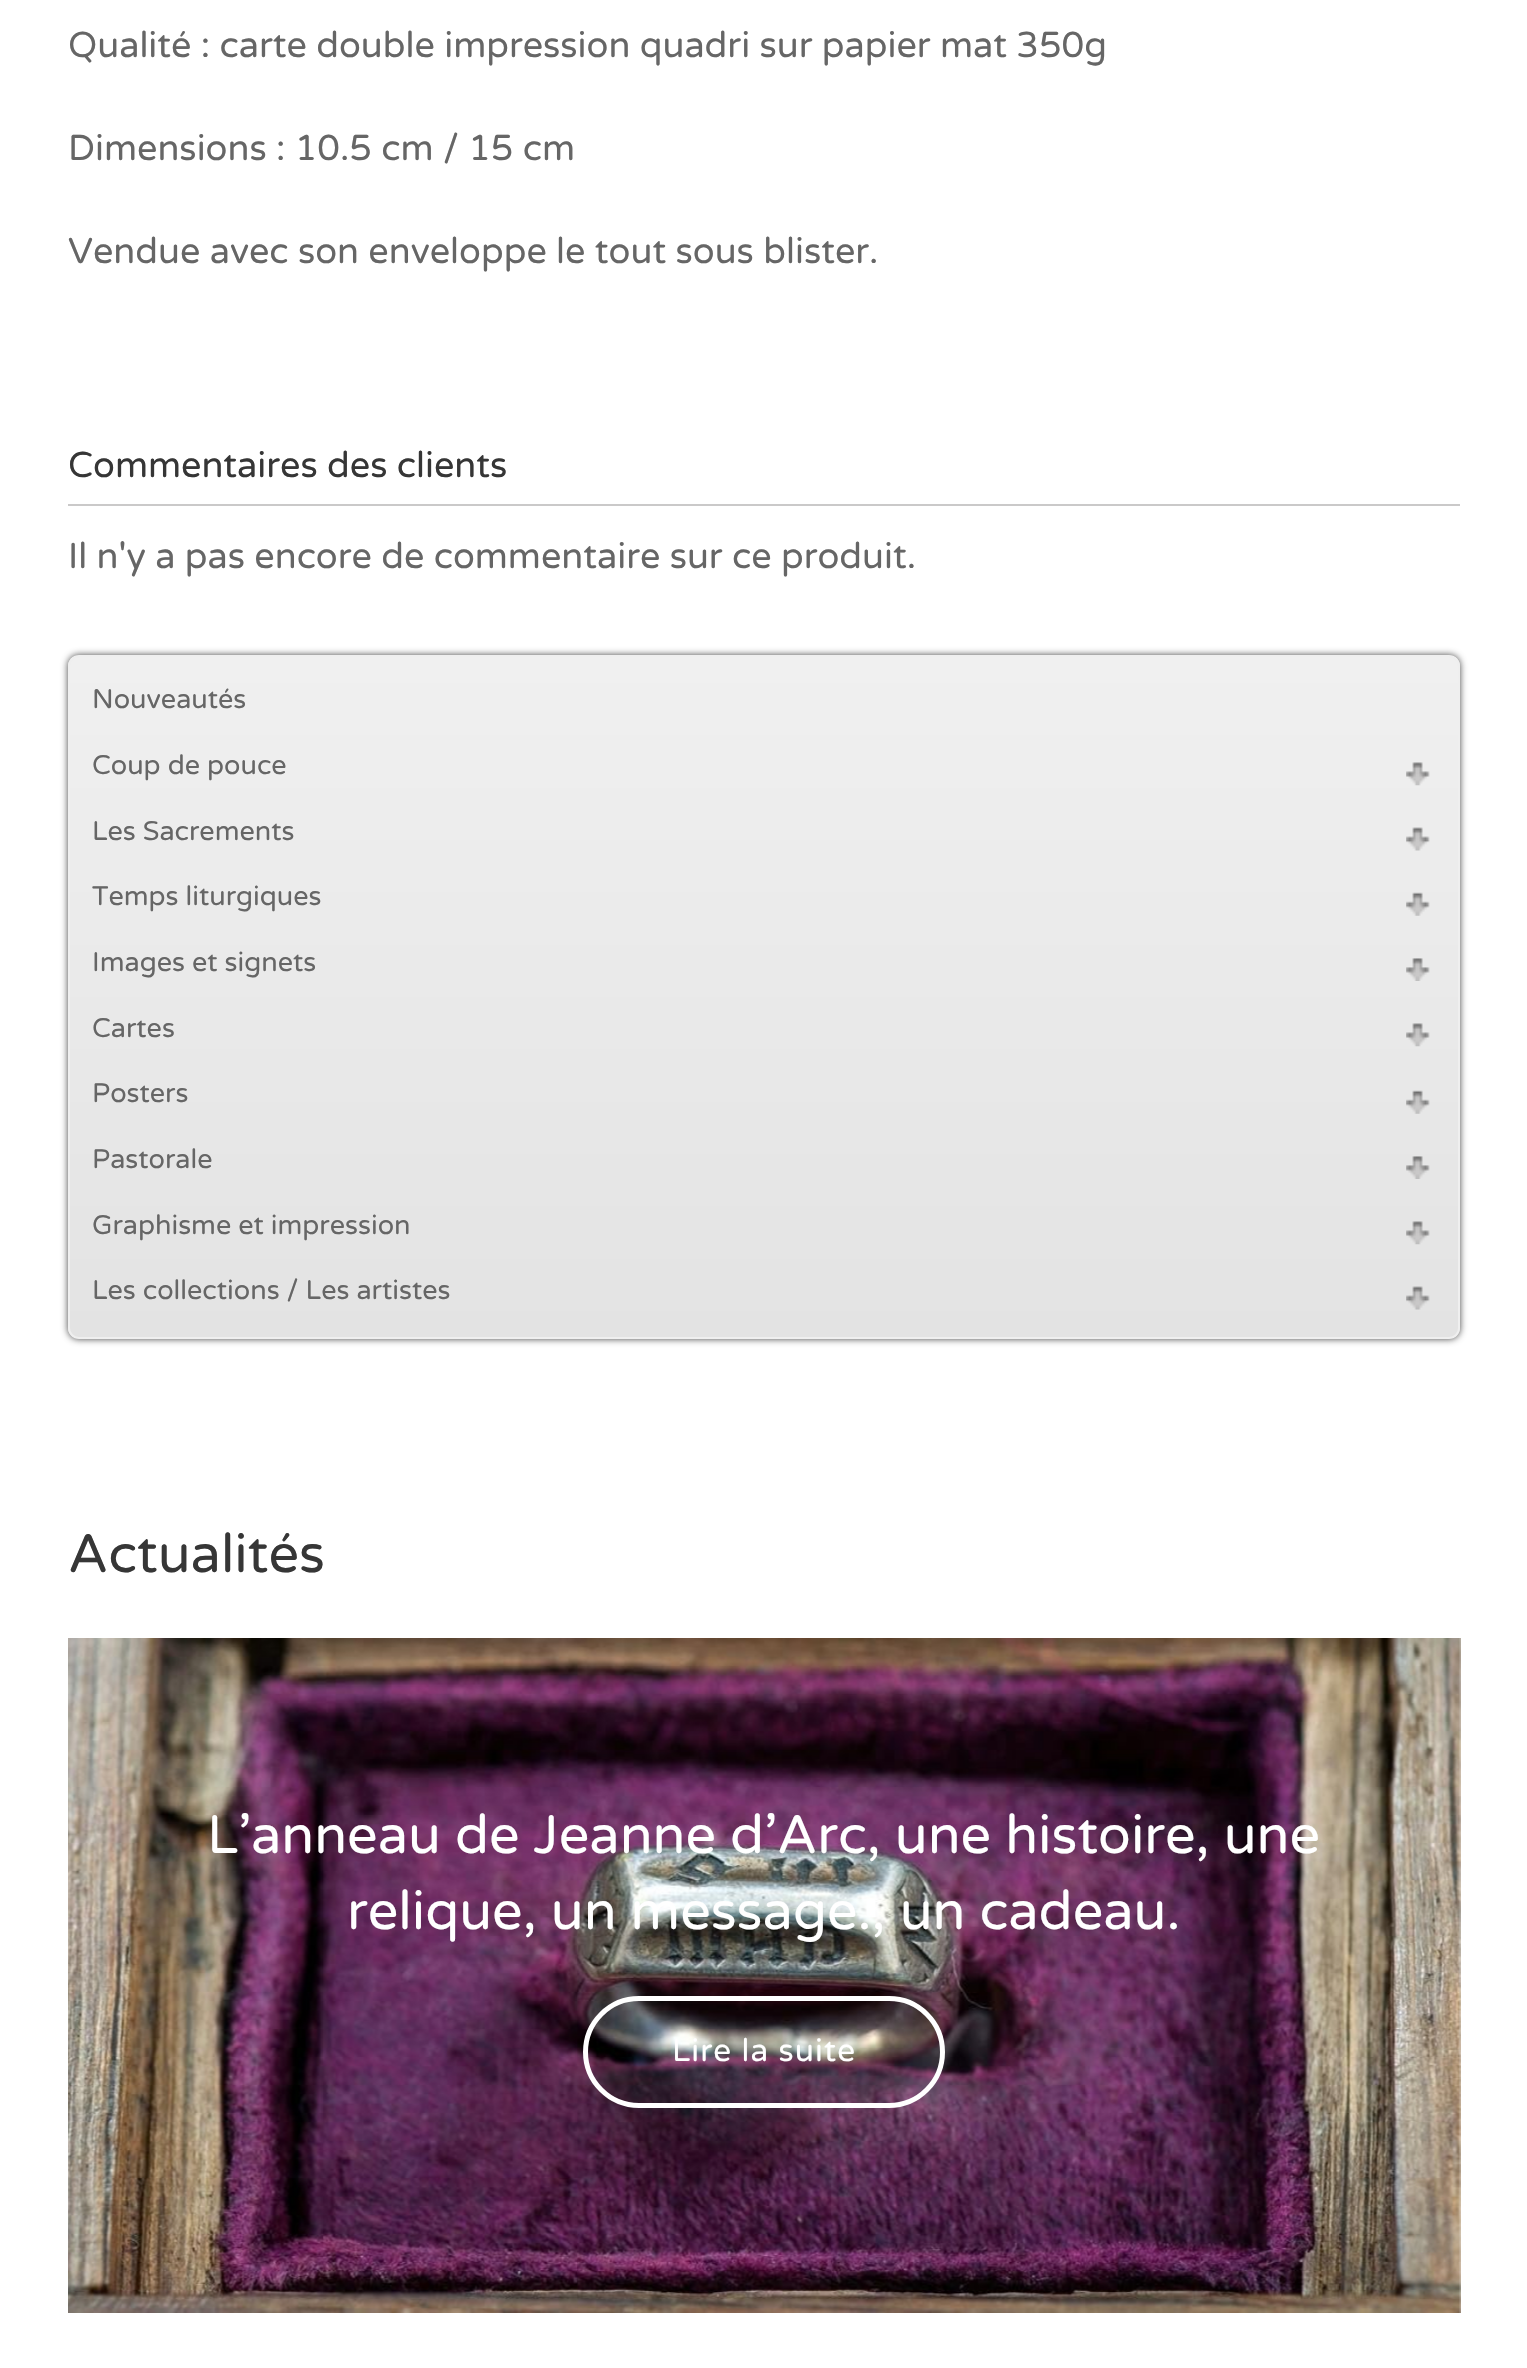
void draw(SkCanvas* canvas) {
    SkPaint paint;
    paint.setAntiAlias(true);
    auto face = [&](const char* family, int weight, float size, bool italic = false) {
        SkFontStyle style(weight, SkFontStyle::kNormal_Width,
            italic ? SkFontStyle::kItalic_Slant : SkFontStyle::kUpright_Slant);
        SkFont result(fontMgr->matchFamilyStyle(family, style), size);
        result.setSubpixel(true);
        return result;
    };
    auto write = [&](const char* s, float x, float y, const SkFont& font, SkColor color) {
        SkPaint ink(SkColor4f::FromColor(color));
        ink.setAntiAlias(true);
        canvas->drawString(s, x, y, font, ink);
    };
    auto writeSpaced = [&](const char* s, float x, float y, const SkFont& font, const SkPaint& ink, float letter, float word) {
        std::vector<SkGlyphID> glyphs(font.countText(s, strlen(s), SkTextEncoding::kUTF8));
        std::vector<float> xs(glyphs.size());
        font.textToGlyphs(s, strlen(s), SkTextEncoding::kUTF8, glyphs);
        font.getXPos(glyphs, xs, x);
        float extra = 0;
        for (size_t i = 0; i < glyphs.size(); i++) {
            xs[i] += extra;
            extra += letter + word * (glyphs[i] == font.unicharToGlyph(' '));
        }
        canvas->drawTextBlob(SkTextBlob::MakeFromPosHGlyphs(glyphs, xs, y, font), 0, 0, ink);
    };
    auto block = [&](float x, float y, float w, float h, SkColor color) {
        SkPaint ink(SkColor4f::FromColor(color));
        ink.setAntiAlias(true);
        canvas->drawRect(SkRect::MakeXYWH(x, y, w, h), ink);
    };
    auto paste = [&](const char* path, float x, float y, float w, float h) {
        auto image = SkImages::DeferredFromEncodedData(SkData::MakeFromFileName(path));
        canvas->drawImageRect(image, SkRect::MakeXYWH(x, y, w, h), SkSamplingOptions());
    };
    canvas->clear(SK_ColorWHITE);
    auto kFont1 = face("Varela Round", 400, 36);
    write("Qualité : carte double impression quadri sur papier mat 350g", 68, 57, kFont1, SkColorSetRGB(102, 102, 102));
    write("Dimensions : 10.5 cm / 15 cm", 68, 160, kFont1, SkColorSetRGB(102, 102, 102));
    write("Vendue avec son enveloppe le tout sous blister.", 68, 263, kFont1, SkColorSetRGB(102, 102, 102));
    block(68, 504, 1392, 2, SkColorSetRGB(202, 201, 201));
    write("Commentaires des clients", 68, 477, kFont1, SkColorSetRGB(54, 54, 54));
    write("Il n'y a pas encore de commentaire sur ce produit.", 68, 568, kFont1, SkColorSetRGB(102, 102, 102));
    paint.setColor(SkColorSetRGB(68, 68, 68));
    paint.setMaskFilter(SkMaskFilter::MakeBlur(kNormal_SkBlurStyle, 3.5f));
    canvas->drawRoundRect(SkRect::MakeXYWH(68, 655, 1392, 684), 11, 11, paint);
    paint.setMaskFilter(nullptr);
    canvas->save();
    canvas->clipPath(SkPathBuilder().moveTo(79, 655).lineTo(1449, 655).cubicTo(1455, 655, 1460, 660, 1460, 666).lineTo(1460, 1328).cubicTo(1460, 1334, 1455, 1339, 1449, 1339).lineTo(79, 1339).cubicTo(73, 1339, 68, 1334, 68, 1328).lineTo(68, 666).cubicTo(68, 660, 73, 655, 79, 655).close().detach(), true);
    {
        const SkColor colors[] = {SkColorSetRGB(240, 240, 240), SkColorSetRGB(227, 227, 227)};
        const float stops[] = {0, 1};
        const SkPoint ends[] = {{764, 657}, {764, 1337}};
        paint.setShader(SkGradientShader::MakeLinear(ends, colors, stops, 2, SkTileMode::kClamp));
        paint.setAlpha(255);
    }
    canvas->drawRect(SkRect::MakeXYWH(68, 657, 1392, 680), paint);
    canvas->restore();
    paint.setStyle(SkPaint::kStroke_Style);
    paint.setStrokeWidth(2);
    paint.setShader(nullptr);
    paint.setColor(SkColorSetRGB(239, 239, 239));
    canvas->drawRoundRect(SkRect::MakeXYWH(69, 656, 1390, 682), 10, 10, paint);
    auto kFont2 = face("Varela Round", 400, 27);
    write("Nouveautés", 92, 708, kFont2, SkColorSetRGB(102, 102, 102));
    write("Coup de pouce", 92, 774, kFont2, SkColorSetRGB(102, 102, 102));
    paste("pic1.png", 1406, 762, 24, 24);
    write("Les Sacrements", 92, 840, kFont2, SkColorSetRGB(102, 102, 102));
    paste("pic2.png", 1406, 827, 24, 24);
    write("Temps liturgiques", 92, 905, kFont2, SkColorSetRGB(102, 102, 102));
    paste("pic3.png", 1406, 892, 24, 24);
    write("Images et signets", 92, 971, kFont2, SkColorSetRGB(102, 102, 102));
    paste("pic4.png", 1406, 958, 24, 23);
    write("Cartes", 92, 1037, kFont2, SkColorSetRGB(102, 102, 102));
    paste("pic5.png", 1406, 1023, 24, 24);
    write("Posters", 92, 1102, kFont2, SkColorSetRGB(102, 102, 102));
    paste("pic6.png", 1406, 1090, 24, 24);
    write("Pastorale", 92, 1168, kFont2, SkColorSetRGB(102, 102, 102));
    paste("pic7.png", 1406, 1156, 24, 23);
    write("Graphisme et impression", 92, 1234, kFont2, SkColorSetRGB(102, 102, 102));
    paste("pic8.png", 1406, 1221, 24, 24);
    write("Les collections / Les artistes", 92, 1299, kFont2, SkColorSetRGB(102, 102, 102));
    paste("pic9.png", 1406, 1286, 24, 24);
    auto kFont3 = face("Varela Round", 400, 54);
    write("Actualités", 68, 1572, kFont3, SkColorSetRGB(54, 54, 54));
    paste("pic10.png", 68, 1638, 1393, 675);
    write("L’anneau de Jeanne d’Arc, une histoire, une", 207, 1853, kFont3, SK_ColorWHITE);
    write("relique, un message., un cadeau.", 347, 1929, kFont3, SK_ColorWHITE);
    paint.setStrokeWidth(5);
    paint.setColor(SK_ColorWHITE);
    canvas->drawRoundRect(SkRect::MakeXYWH(585.5f, 1998.5f, 357, 107), 53.5f, 53.5f, paint);
    auto kFont4 = face("Varela Round", 400, 31.5f);
    paint.setStyle(SkPaint::kFill_Style);
    writeSpaced("Lire la suite", 672, 2061, kFont4, paint, 1.1f, 0);
}
